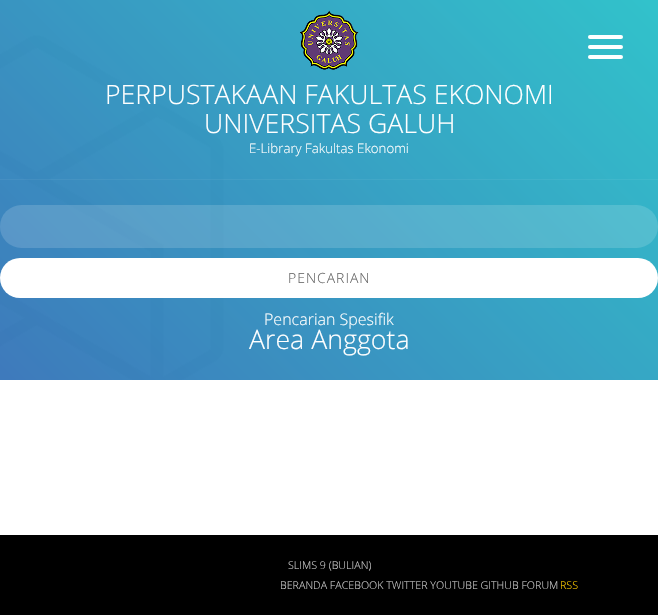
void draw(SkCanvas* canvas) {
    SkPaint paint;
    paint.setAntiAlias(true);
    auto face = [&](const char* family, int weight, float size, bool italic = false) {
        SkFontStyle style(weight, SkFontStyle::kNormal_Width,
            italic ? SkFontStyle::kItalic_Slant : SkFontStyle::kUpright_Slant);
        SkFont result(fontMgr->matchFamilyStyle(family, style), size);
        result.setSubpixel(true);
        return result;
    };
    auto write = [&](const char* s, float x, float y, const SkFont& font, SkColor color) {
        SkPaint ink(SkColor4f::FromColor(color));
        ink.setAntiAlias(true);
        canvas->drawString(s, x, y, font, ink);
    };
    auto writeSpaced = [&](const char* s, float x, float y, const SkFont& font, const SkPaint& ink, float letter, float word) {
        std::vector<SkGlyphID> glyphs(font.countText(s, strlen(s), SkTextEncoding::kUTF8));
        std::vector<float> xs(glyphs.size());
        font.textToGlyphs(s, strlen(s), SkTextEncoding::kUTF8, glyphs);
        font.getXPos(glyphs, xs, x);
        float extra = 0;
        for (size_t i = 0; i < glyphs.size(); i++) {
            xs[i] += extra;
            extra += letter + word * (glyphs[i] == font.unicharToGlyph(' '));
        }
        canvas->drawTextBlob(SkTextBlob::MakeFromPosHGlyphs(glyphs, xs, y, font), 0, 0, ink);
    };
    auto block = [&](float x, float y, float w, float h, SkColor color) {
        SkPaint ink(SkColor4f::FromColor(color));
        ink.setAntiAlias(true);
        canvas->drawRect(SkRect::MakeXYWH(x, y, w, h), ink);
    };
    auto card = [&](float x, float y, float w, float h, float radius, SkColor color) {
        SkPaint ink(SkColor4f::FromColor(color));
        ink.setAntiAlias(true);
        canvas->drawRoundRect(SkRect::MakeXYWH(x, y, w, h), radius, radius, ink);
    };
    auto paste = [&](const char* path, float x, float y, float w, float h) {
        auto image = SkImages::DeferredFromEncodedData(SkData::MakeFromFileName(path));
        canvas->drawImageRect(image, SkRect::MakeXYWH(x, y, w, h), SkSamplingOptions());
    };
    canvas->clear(SkColorSetRGB(181, 181, 181));
    paste("pic1.png", 0, 35, 224, 345);
    {
        const SkColor colors[] = {SkColorSetARGB(191, 25, 79, 184), SkColorSetARGB(191, 5, 198, 209)};
        const float stops[] = {0, 1};
        const SkPoint ends[] = {{11, 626}, {647, -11}};
        paint.setShader(SkGradientShader::MakeLinear(ends, colors, stops, 2, SkTileMode::kClamp));
        paint.setAlpha(255);
    }
    canvas->drawRect(SkRect::MakeXYWH(0, 0, 658, 380), paint);
    block(0, 179, 658, 1, SkColorSetARGB(13, 255, 255, 255));
    card(588, 45, 35, 4, 2, SK_ColorWHITE);
    card(588, 35, 35, 4, 2, SK_ColorWHITE);
    card(588, 55, 35, 4, 2, SK_ColorWHITE);
    paste("pic2.png", 300, 10, 59, 60);
    auto kFont1 = face("Open Sans", 300, 26.7f);
    write("PERPUSTAKAAN FAKULTAS EKONOMI", 105, 104, kFont1, SK_ColorWHITE);
    write("UNIVERSITAS GALUH", 204, 133, kFont1, SK_ColorWHITE);
    auto kFont2 = face("Open Sans", 300, 13.25f);
    write("E-Library Fakultas Ekonomi", 249, 153, kFont2, SK_ColorWHITE);
    block(0, 380, 658, 155, SK_ColorWHITE);
    card(0, 205, 658, 43, 21.5f, SkColorSetARGB(38, 255, 255, 255));
    card(0, 258, 658, 40, 20, SK_ColorWHITE);
    auto kFont3 = face("Open Sans", 300, 14);
    paint.setShader(nullptr);
    paint.setColor(SkColorSetRGB(102, 102, 102));
    writeSpaced("PENCARIAN", 288, 283, kFont3, paint, 1, 0);
    auto kFont4 = face("Open Sans", 300, 16);
    write("Pencarian Spesifik", 264, 325, kFont4, SK_ColorWHITE);
    write("Area Anggota", 249, 349, kFont1, SK_ColorWHITE);
    block(0, 535, 658, 80, SK_ColorBLACK);
    auto kFont5 = face("Open Sans", 300, 10.7f);
    write("SLIMS 9 (BULIAN)", 288, 569, kFont5, SkColorSetRGB(204, 204, 204));
    write("BERANDA FACEBOOK TWITTER YOUTUBE GITHUB FORUM", 280, 589, kFont5, SkColorSetRGB(204, 204, 204));
    write("RSS", 560, 589, kFont5, SkColorSetRGB(255, 204, 0));
}
